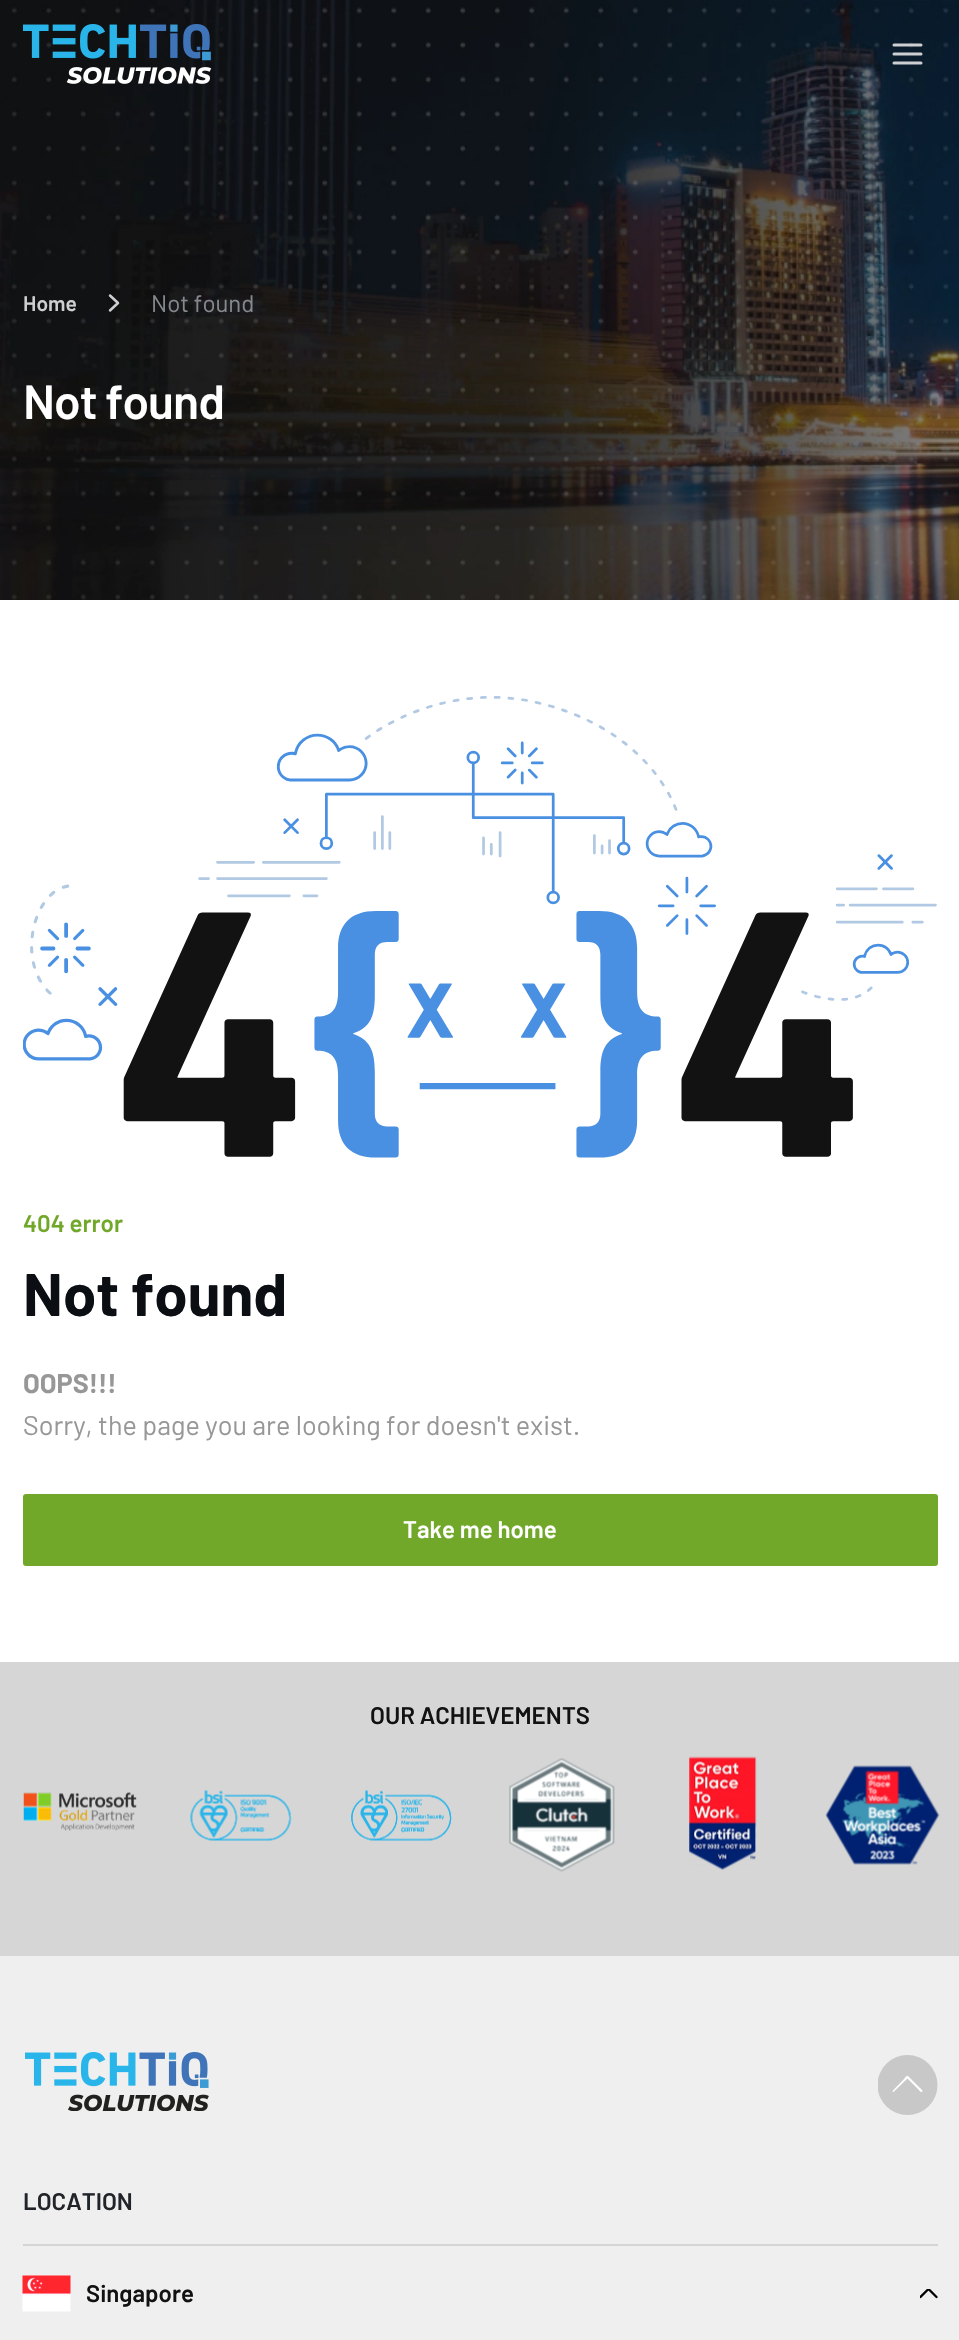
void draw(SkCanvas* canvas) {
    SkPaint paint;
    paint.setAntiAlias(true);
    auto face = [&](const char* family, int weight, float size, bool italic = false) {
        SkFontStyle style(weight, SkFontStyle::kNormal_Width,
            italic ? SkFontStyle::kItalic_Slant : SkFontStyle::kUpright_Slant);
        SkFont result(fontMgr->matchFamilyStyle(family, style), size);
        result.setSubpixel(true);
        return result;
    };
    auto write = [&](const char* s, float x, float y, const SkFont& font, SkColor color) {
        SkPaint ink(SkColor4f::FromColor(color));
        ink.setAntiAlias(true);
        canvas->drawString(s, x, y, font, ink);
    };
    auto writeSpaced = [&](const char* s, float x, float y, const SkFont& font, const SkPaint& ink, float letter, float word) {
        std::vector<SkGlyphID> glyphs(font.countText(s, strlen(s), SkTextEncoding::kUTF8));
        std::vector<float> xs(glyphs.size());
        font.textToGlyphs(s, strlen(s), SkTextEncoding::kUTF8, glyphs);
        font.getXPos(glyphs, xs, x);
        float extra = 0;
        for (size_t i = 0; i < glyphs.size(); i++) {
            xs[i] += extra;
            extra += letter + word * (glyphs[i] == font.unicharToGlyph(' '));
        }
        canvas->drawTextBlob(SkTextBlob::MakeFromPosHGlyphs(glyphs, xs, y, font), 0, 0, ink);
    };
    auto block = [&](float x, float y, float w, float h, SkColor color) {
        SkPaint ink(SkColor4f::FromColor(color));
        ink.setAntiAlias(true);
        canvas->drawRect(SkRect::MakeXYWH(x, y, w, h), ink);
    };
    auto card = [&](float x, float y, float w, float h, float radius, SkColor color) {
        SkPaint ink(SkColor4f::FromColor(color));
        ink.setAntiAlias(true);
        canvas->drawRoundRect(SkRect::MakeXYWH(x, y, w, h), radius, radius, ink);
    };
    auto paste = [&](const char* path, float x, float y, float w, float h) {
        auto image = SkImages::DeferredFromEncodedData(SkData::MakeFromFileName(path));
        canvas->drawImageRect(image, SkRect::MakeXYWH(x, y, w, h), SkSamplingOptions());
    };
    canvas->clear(SK_ColorWHITE);
    paste("pic2.png", 0, 0, 959, 600);
    paste("pic1.png", 23, 24, 189, 60);
    paint.setStyle(SkPaint::kStroke_Style);
    paint.setStrokeWidth(3);
    paint.setStrokeCap(SkPaint::kRound_Cap);
    paint.setStrokeJoin(SkPaint::kRound_Join);
    paint.setColor(SkColorSetRGB(206, 207, 210));
    canvas->drawPath(SkPathBuilder().moveTo(894, 54).lineTo(921, 54).moveTo(894, 45).lineTo(921, 45).moveTo(894, 63).lineTo(921, 63).detach(), paint);
    auto kFont1 = face("Barlow", 600, 21);
    write("Home", 23, 311, kFont1, SkColorSetRGB(206, 207, 210));
    paint.setStrokeWidth(2.5f);
    canvas->drawPath(SkPathBuilder().moveTo(110, 310.5f).lineTo(118, 303).lineTo(110, 295.5f).detach(), paint);
    auto kFont2 = face("Barlow", 400, 24);
    write("Not found", 151, 312, kFont2, SkColorSetRGB(133, 136, 142));
    auto kFont3 = face("Barlow", 600, 48);
    paint.setStyle(SkPaint::kFill_Style);
    paint.setColor(SK_ColorWHITE);
    writeSpaced("Not found", 23, 419, kFont3, paint, -1, 0);
    paste("pic3.png", 23, 696, 914, 462);
    auto kFont4 = face("Barlow", 600, 24);
    write("404 error", 23, 1232, kFont4, SkColorSetRGB(114, 168, 41));
    auto kFont5 = face("Barlow", 700, 60);
    write("Not found", 23, 1316, kFont5, SkColorSetRGB(11, 14, 18));
    auto kFont6 = face("Barlow", 700, 27);
    write("OOPS!!!", 23, 1393, kFont6, SkColorSetRGB(151, 151, 151));
    auto kFont7 = face("Barlow", 400, 27);
    write("Sorry, the page you are looking for doesn't exist.", 23, 1435, kFont7, SkColorSetRGB(151, 151, 151));
    card(23, 1494, 915, 72, 3, SkColorSetRGB(114, 168, 41));
    write("Take me home", 403, 1538, kFont4, SK_ColorWHITE);
    block(0, 1956, 959, 384, SkColorSetRGB(239, 239, 239));
    block(0, 1662, 959, 294, SkColorSetRGB(214, 214, 214));
    write("OUR ACHIEVEMENTS", 370, 1724, kFont4, SkColorSetRGB(18, 18, 18));
    paste("pic4.png", 23, 1792, 114, 39);
    paste("pic5.png", 190, 1790, 102, 51);
    paste("pic6.png", 351, 1790, 101, 51);
    paste("pic7.png", 509, 1758, 106, 114);
    paste("pic8.png", 689, 1756, 68, 114);
    paste("pic9.png", 825, 1765, 115, 100);
    paste("pic10.png", 25, 2052, 184, 59);
    write("LOCATION", 23, 2210, kFont4, SkColorSetRGB(33, 37, 41));
    block(23, 2244, 915, 2, SkColorSetRGB(213, 213, 213));
    paste("pic11.png", 22, 2275, 49, 37);
    write("Singapore", 86, 2302, kFont4, SkColorSetRGB(18, 18, 18));
    canvas->save();
    canvas->clipRect(SkRect::MakeXYWH(920, 2289, 18, 11));
    paint.setStyle(SkPaint::kStroke_Style);
    paint.setStrokeWidth(2.3f);
    paint.setColor(SK_ColorBLACK);
    canvas->drawPath(SkPathBuilder().moveTo(936.5f, 2297).lineTo(928.5f, 2289).lineTo(920.5f, 2297).detach(), paint);
    canvas->restore();
    canvas->save();
    canvas->clipRect(SkRect::MakeXYWH(878, 2055, 60, 60));
    paint.setStyle(SkPaint::kFill_Style);
    paint.setColor(SkColorSetRGB(200, 200, 200));
    canvas->drawCircle(907.5f, 2085, 30, paint);
    canvas->restore();
    paint.setColor(SK_ColorWHITE);
    canvas->drawPath(SkPathBuilder().moveTo(894, 2091.5f).lineTo(907.5f, 2078.5f).lineTo(918.5f, 2089.5f).cubicTo(918.5f, 2089.5f, 920.5f, 2092.5f, 922, 2092).cubicTo(923.5f, 2091, 921.5f, 2089.5f, 920, 2088).lineTo(908, 2076).cubicTo(907, 2075, 904.5f, 2078.5f, 904.5f, 2078.5f).lineTo(892.5f, 2091).cubicTo(892.5f, 2092, 893.5f, 2092.5f, 894, 2091.5f).close().detach(), paint);
}
